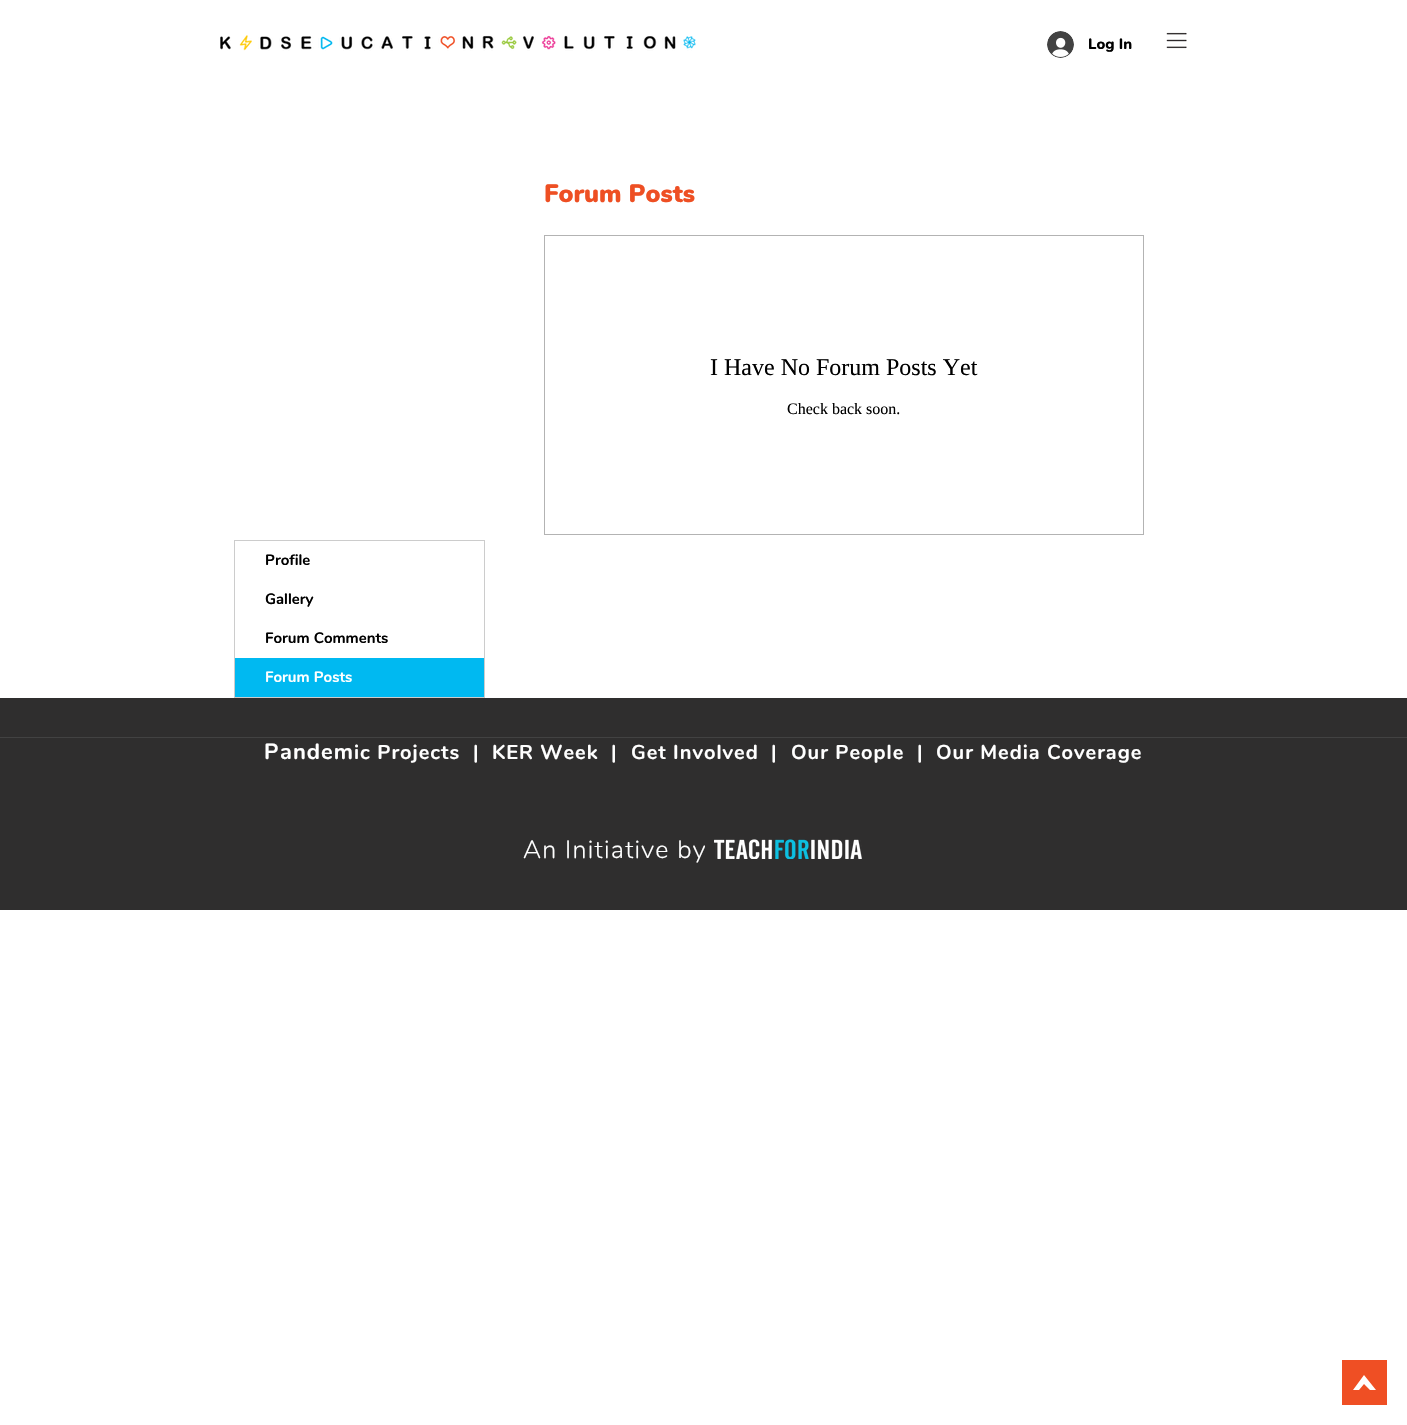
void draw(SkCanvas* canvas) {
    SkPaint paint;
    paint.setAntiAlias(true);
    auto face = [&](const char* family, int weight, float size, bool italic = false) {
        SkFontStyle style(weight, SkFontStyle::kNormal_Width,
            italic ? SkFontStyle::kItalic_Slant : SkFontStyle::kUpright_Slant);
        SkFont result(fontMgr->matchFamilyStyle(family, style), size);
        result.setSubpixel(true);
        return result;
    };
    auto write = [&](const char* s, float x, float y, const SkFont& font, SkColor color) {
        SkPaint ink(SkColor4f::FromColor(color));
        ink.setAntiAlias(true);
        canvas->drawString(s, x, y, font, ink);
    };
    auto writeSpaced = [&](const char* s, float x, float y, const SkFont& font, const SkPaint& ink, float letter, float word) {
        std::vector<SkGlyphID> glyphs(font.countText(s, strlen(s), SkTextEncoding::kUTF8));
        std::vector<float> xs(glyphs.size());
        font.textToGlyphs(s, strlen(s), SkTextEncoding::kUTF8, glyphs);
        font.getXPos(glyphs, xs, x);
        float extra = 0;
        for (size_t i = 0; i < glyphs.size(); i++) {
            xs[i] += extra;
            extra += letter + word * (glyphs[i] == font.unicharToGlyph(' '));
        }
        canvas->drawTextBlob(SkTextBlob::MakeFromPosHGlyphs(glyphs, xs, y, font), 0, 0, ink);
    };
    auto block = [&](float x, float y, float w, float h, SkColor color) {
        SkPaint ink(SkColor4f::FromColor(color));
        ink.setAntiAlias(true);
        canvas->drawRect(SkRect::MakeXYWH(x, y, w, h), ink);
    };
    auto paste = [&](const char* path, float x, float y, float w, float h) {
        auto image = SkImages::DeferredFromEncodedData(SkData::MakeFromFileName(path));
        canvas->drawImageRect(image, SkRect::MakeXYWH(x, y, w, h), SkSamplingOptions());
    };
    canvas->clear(SK_ColorWHITE);
    paste("pic1.png", 220, 35, 476, 16);
    paste("pic2.png", 1047, 31, 27, 27);
    auto kFont1 = face("Nunito", 800, 15);
    write("Log In", 1088, 49, kFont1, SK_ColorBLACK);
    paste("pic3.png", 1166, 32, 21, 17);
    auto kFont2 = face("Nunito", 900, 25);
    write("Forum Posts", 544, 202, kFont2, SkColorSetRGB(238, 79, 35));
    paint.setStyle(SkPaint::kStroke_Style);
    paint.setStrokeWidth(1);
    paint.setColor(SkColorSetRGB(179, 179, 179));
    canvas->drawRect(SkRect::MakeXYWH(544.5f, 235.5f, 599, 299), paint);
    auto kFont3 = face("Liberation Serif", 400, 24);
    write("I Have No Forum Posts Yet", 710, 375, kFont3, SK_ColorBLACK);
    auto kFont4 = face("Liberation Serif", 400, 16);
    write("Check back soon.", 787, 414, kFont4, SK_ColorBLACK);
    paint.setColor(SkColorSetRGB(204, 204, 204));
    canvas->drawRect(SkRect::MakeXYWH(234.5f, 540.5f, 250, 157), paint);
    auto kFont5 = face("Nunito", 700, 15);
    write("Profile", 265, 565, kFont5, SK_ColorBLACK);
    write("Gallery", 265, 604, kFont5, SK_ColorBLACK);
    write("Forum Comments", 265, 643, kFont5, SK_ColorBLACK);
    block(235, 658, 249, 39, SkColorSetRGB(0, 185, 241));
    write("Forum Posts", 265, 682, kFont5, SK_ColorWHITE);
    block(0, 698, 1407, 212, SkColorSetRGB(47, 46, 46));
    block(0, 737, 1407, 1, SkColorSetRGB(66, 66, 66));
    auto kFont6 = face("Nunito", 700, 22);
    paint.setStyle(SkPaint::kFill_Style);
    paint.setColor(SK_ColorWHITE);
    writeSpaced("P", 264, 759, kFont6, paint, 1, 0);
    writeSpaced("andem", 280, 759, kFont6, paint, 1, 0);
    auto kFont7 = face("Nunito", 700, 20);
    writeSpaced("ic Projects", 354, 759, kFont7, paint, 1, 0);
    writeSpaced("|", 473, 759, kFont7, paint, 1, 0);
    writeSpaced("KER Week", 492, 759, kFont7, paint, 1, 0);
    writeSpaced("|", 611, 759, kFont7, paint, 1, 0);
    writeSpaced("Get Involved", 631, 759, kFont7, paint, 1, 0);
    writeSpaced("|", 771, 759, kFont7, paint, 1, 0);
    writeSpaced("Our People", 791, 759, kFont7, paint, 1, 0);
    writeSpaced("|", 917, 759, kFont7, paint, 1, 0);
    writeSpaced("Our Media Coverage", 936, 759, kFont7, paint, 1, 0);
    auto kFont8 = face("Nunito", 300, 25);
    writeSpaced("An Initiative by", 523, 858, kFont8, paint, 1.25f, 0);
    paste("pic4.png", 714, 839, 148, 20);
    paint.setColor(SkColorSetRGB(239, 79, 36));
    canvas->drawPath(SkPathBuilder().moveTo(1342, 1360).lineTo(1342, 1405).lineTo(1387, 1405).lineTo(1387, 1360).close().moveTo(1370, 1390).lineTo(1364, 1384).lineTo(1359, 1390).lineTo(1353, 1390).lineTo(1364, 1375).lineTo(1376, 1390).close().detach(), paint);
}
